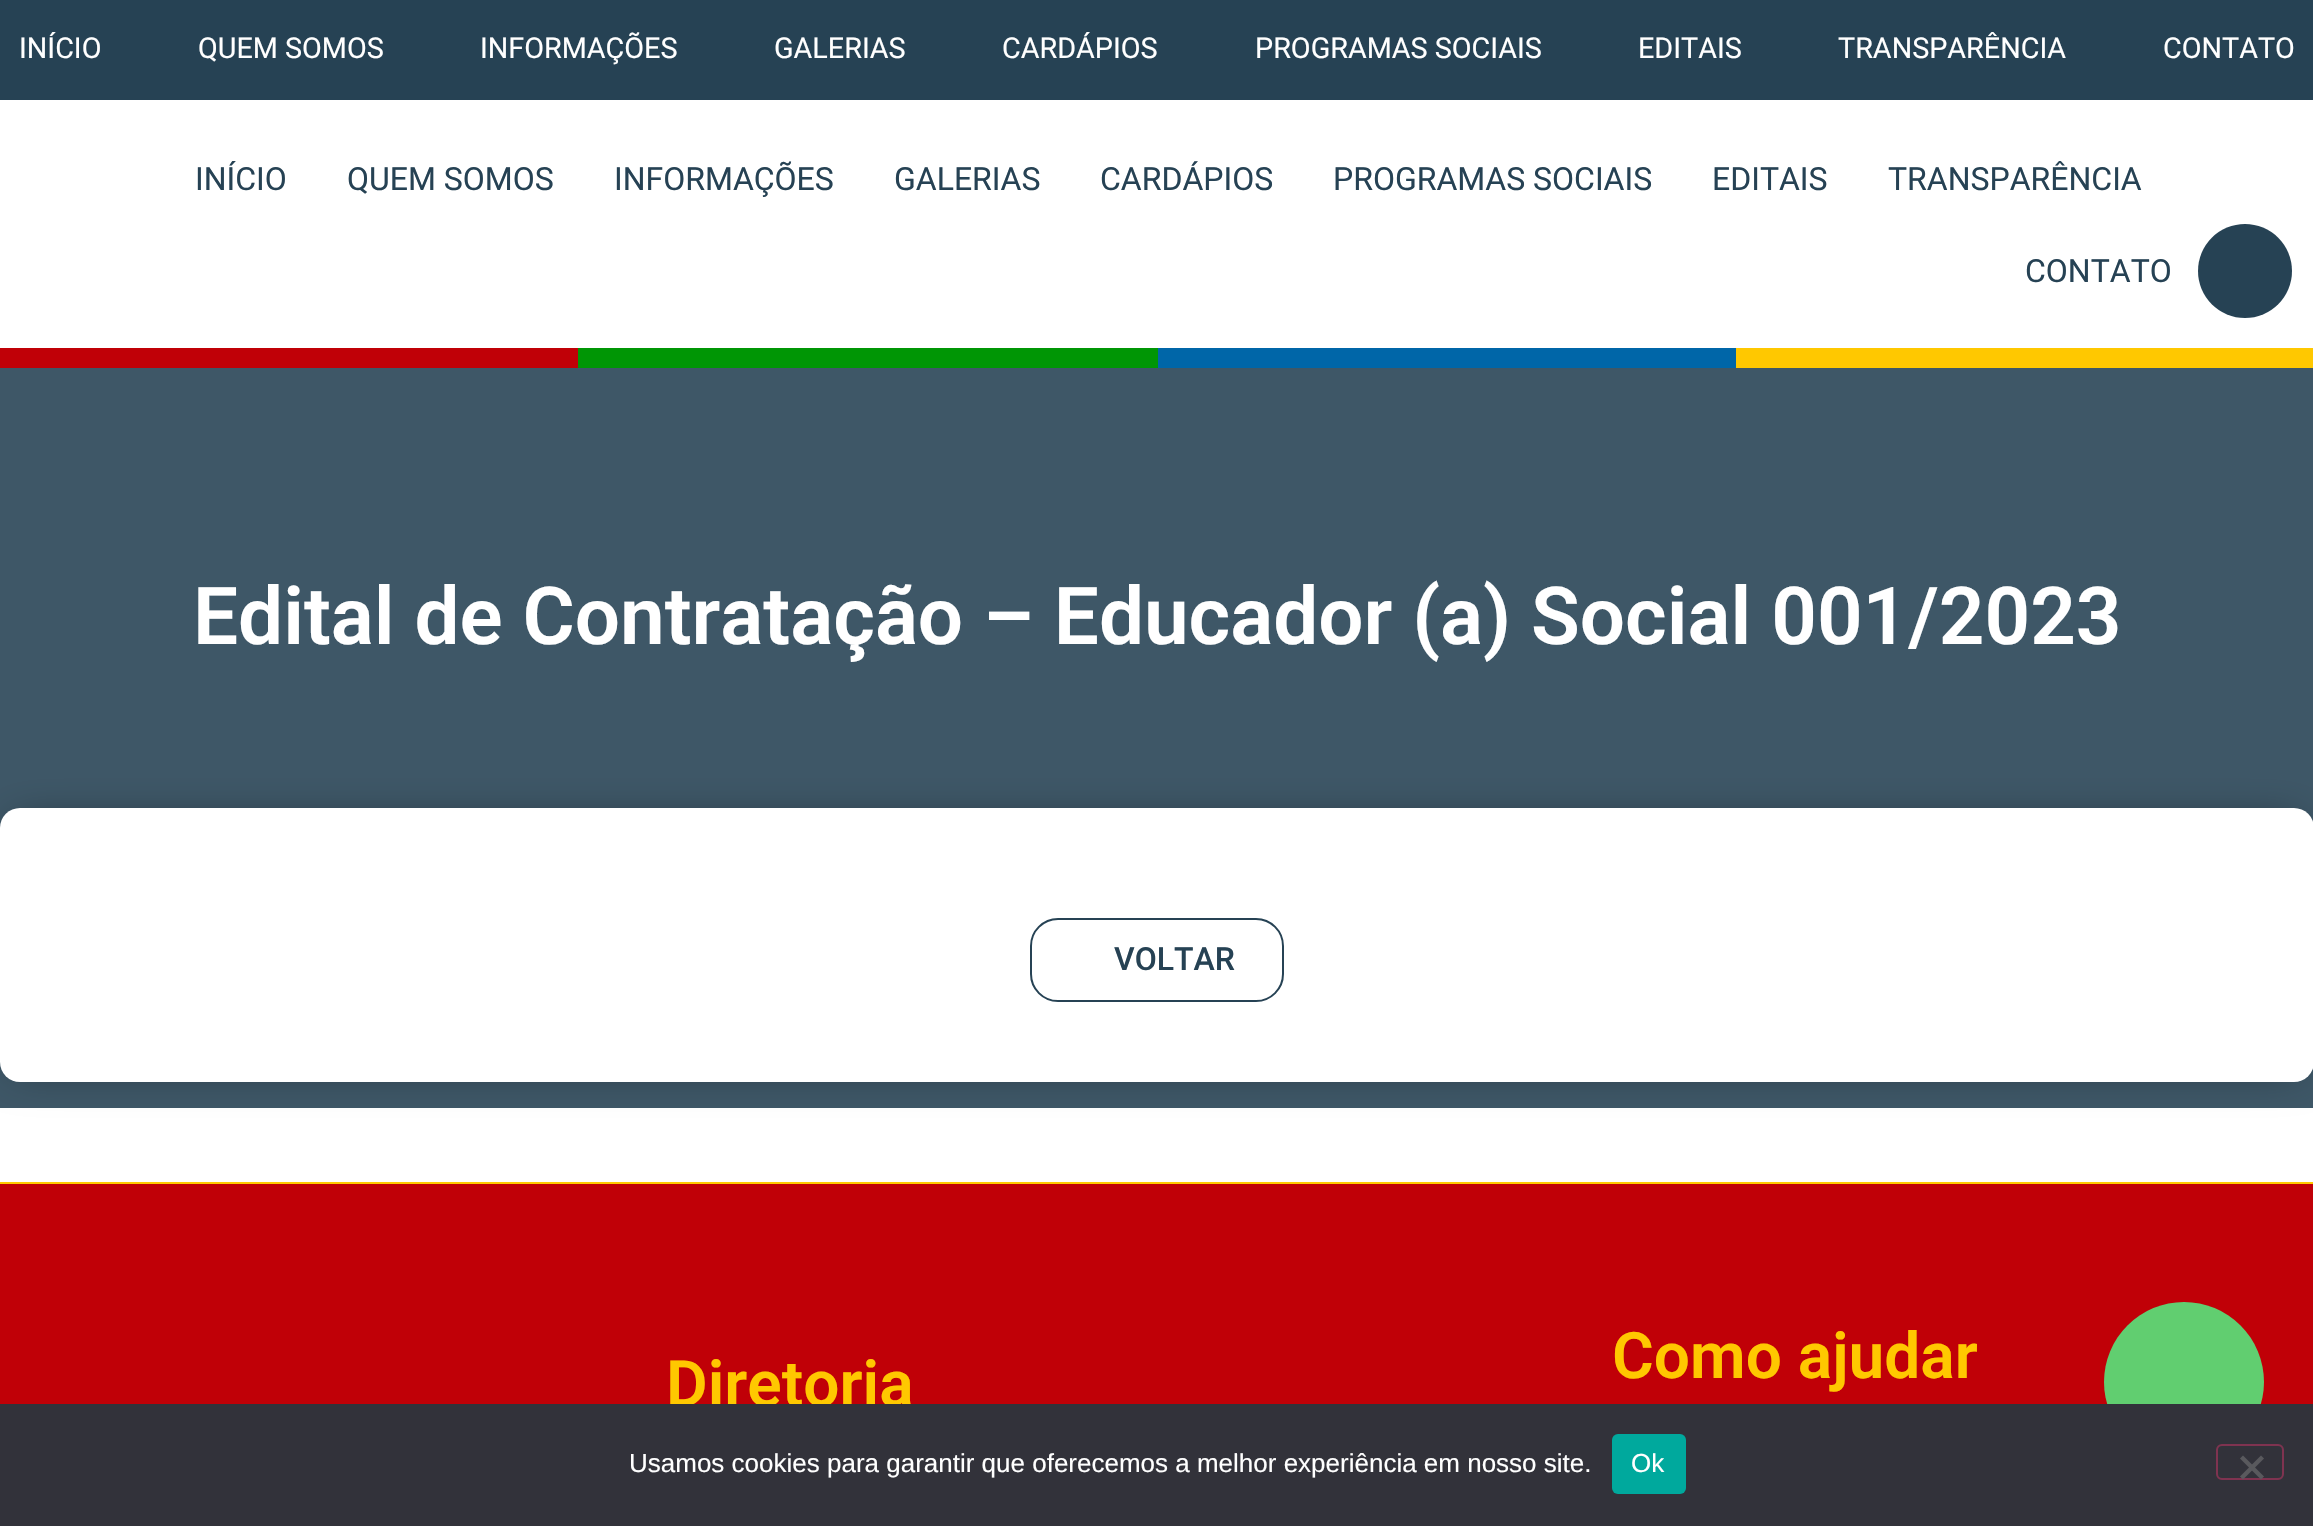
void draw(SkCanvas* canvas) {
    SkPaint paint;
    paint.setAntiAlias(true);
    auto face = [&](const char* family, int weight, float size, bool italic = false) {
        SkFontStyle style(weight, SkFontStyle::kNormal_Width,
            italic ? SkFontStyle::kItalic_Slant : SkFontStyle::kUpright_Slant);
        SkFont result(fontMgr->matchFamilyStyle(family, style), size);
        result.setSubpixel(true);
        return result;
    };
    auto write = [&](const char* s, float x, float y, const SkFont& font, SkColor color) {
        SkPaint ink(SkColor4f::FromColor(color));
        ink.setAntiAlias(true);
        canvas->drawString(s, x, y, font, ink);
    };
    auto block = [&](float x, float y, float w, float h, SkColor color) {
        SkPaint ink(SkColor4f::FromColor(color));
        ink.setAntiAlias(true);
        canvas->drawRect(SkRect::MakeXYWH(x, y, w, h), ink);
    };
    auto card = [&](float x, float y, float w, float h, float radius, SkColor color) {
        SkPaint ink(SkColor4f::FromColor(color));
        ink.setAntiAlias(true);
        canvas->drawRoundRect(SkRect::MakeXYWH(x, y, w, h), radius, radius, ink);
    };
    canvas->clear(SK_ColorWHITE);
    block(0, 0, 2313, 100, SkColorSetRGB(38, 66, 84));
    auto kFont1 = face("Roboto", 400, 28.75f);
    write("INÍCIO", 19, 58, kFont1, SK_ColorWHITE);
    write("QUEM SOMOS", 198, 58, kFont1, SK_ColorWHITE);
    write("INFORMAÇÕES", 480, 58, kFont1, SK_ColorWHITE);
    write("GALERIAS", 774, 58, kFont1, SK_ColorWHITE);
    write("CARDÁPIOS", 1002, 58, kFont1, SK_ColorWHITE);
    write("PROGRAMAS SOCIAIS", 1255, 58, kFont1, SK_ColorWHITE);
    write("EDITAIS", 1638, 58, kFont1, SK_ColorWHITE);
    write("TRANSPARÊNCIA", 1838, 58, kFont1, SK_ColorWHITE);
    write("CONTATO", 2163, 58, kFont1, SK_ColorWHITE);
    auto kFont2 = face("Roboto", 400, 32);
    write("INÍCIO", 195, 190, kFont2, SkColorSetRGB(38, 66, 84));
    write("QUEM SOMOS", 347, 190, kFont2, SkColorSetRGB(38, 66, 84));
    write("INFORMAÇÕES", 614, 190, kFont2, SkColorSetRGB(38, 66, 84));
    write("GALERIAS", 894, 190, kFont2, SkColorSetRGB(38, 66, 84));
    write("CARDÁPIOS", 1100, 190, kFont2, SkColorSetRGB(38, 66, 84));
    write("PROGRAMAS SOCIAIS", 1333, 190, kFont2, SkColorSetRGB(38, 66, 84));
    write("EDITAIS", 1712, 190, kFont2, SkColorSetRGB(38, 66, 84));
    write("TRANSPARÊNCIA", 1888, 190, kFont2, SkColorSetRGB(38, 66, 84));
    write("CONTATO", 2025, 282, kFont2, SkColorSetRGB(38, 66, 84));
    paint.setColor(SkColorSetRGB(38, 66, 84));
    canvas->drawCircle(2245, 271, 47, paint);
    block(0, 348, 578, 20, SkColorSetRGB(192, 0, 7));
    block(578, 348, 580, 20, SkColorSetRGB(0, 150, 5));
    block(1158, 348, 578, 20, SkColorSetRGB(0, 102, 168));
    block(1736, 348, 577, 20, SkColorSetRGB(255, 200, 0));
    block(0, 368, 2313, 740, SkColorSetRGB(62, 87, 103));
    auto kFont3 = face("Roboto", 600, 80);
    write("Edital de Contratação – Educador (a) Social 001/2023", 193, 644, kFont3, SK_ColorWHITE);
    paint.setColor(SkColorSetARGB(128, 0, 0, 0));
    paint.setMaskFilter(SkMaskFilter::MakeBlur(kNormal_SkBlurStyle, 22));
    canvas->drawRoundRect(SkRect::MakeXYWH(16, 824, 2282, 242), 4, 4, paint);
    paint.setMaskFilter(nullptr);
    card(0, 808, 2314, 274, 20, SK_ColorWHITE);
    paint.setStyle(SkPaint::kStroke_Style);
    paint.setStrokeWidth(2);
    paint.setColor(SkColorSetRGB(38, 66, 84));
    canvas->drawRoundRect(SkRect::MakeXYWH(1031, 919, 252, 82), 27, 27, paint);
    auto kFont4 = face("Roboto", 500, 32);
    write("VOLTAR", 1114, 970, kFont4, SkColorSetRGB(38, 66, 84));
    block(0, 1184, 2313, 220, SkColorSetRGB(192, 0, 7));
    block(0, 1182, 2313, 2, SkColorSetRGB(255, 200, 0));
    auto kFont5 = face("Roboto", 600, 64);
    write("Diretoria", 666, 1406, kFont5, SkColorSetRGB(255, 200, 0));
    write("Como ajudar", 1612, 1378, kFont5, SkColorSetRGB(255, 200, 0));
    paint.setStyle(SkPaint::kFill_Style);
    paint.setColor(SkColorSetRGB(97, 206, 112));
    canvas->drawCircle(2184, 1382, 80, paint);
    block(0, 1404, 2313, 122, SkColorSetRGB(50, 50, 58));
    auto kFont6 = face("Liberation Sans", 400, 26);
    write("Usamos cookies para garantir que oferecemos a melhor experiência em nosso site.", 629, 1472, kFont6, SK_ColorWHITE);
    card(1612, 1434, 74, 60, 6, SkColorSetRGB(0, 169, 157));
    write("Ok", 1631, 1472, kFont6, SK_ColorWHITE);
    paint.setStyle(SkPaint::kStroke_Style);
    paint.setColor(SkColorSetRGB(127, 51, 80));
    canvas->drawRoundRect(SkRect::MakeXYWH(2217, 1445, 66, 34), 5, 5, paint);
    paint.setStyle(SkPaint::kFill_Style);
    paint.setColor(SkColorSetRGB(89, 89, 93));
    canvas->drawPath(SkPathBuilder().moveTo(2261, 1455.5f).lineTo(2264, 1458.5f).lineTo(2243, 1479.5f).lineTo(2240, 1476.5f).close().detach(), paint);
    canvas->drawPath(SkPathBuilder().moveTo(2240, 1458.5f).lineTo(2243, 1455.5f).lineTo(2264, 1476.5f).lineTo(2261, 1479.5f).close().detach(), paint);
}
